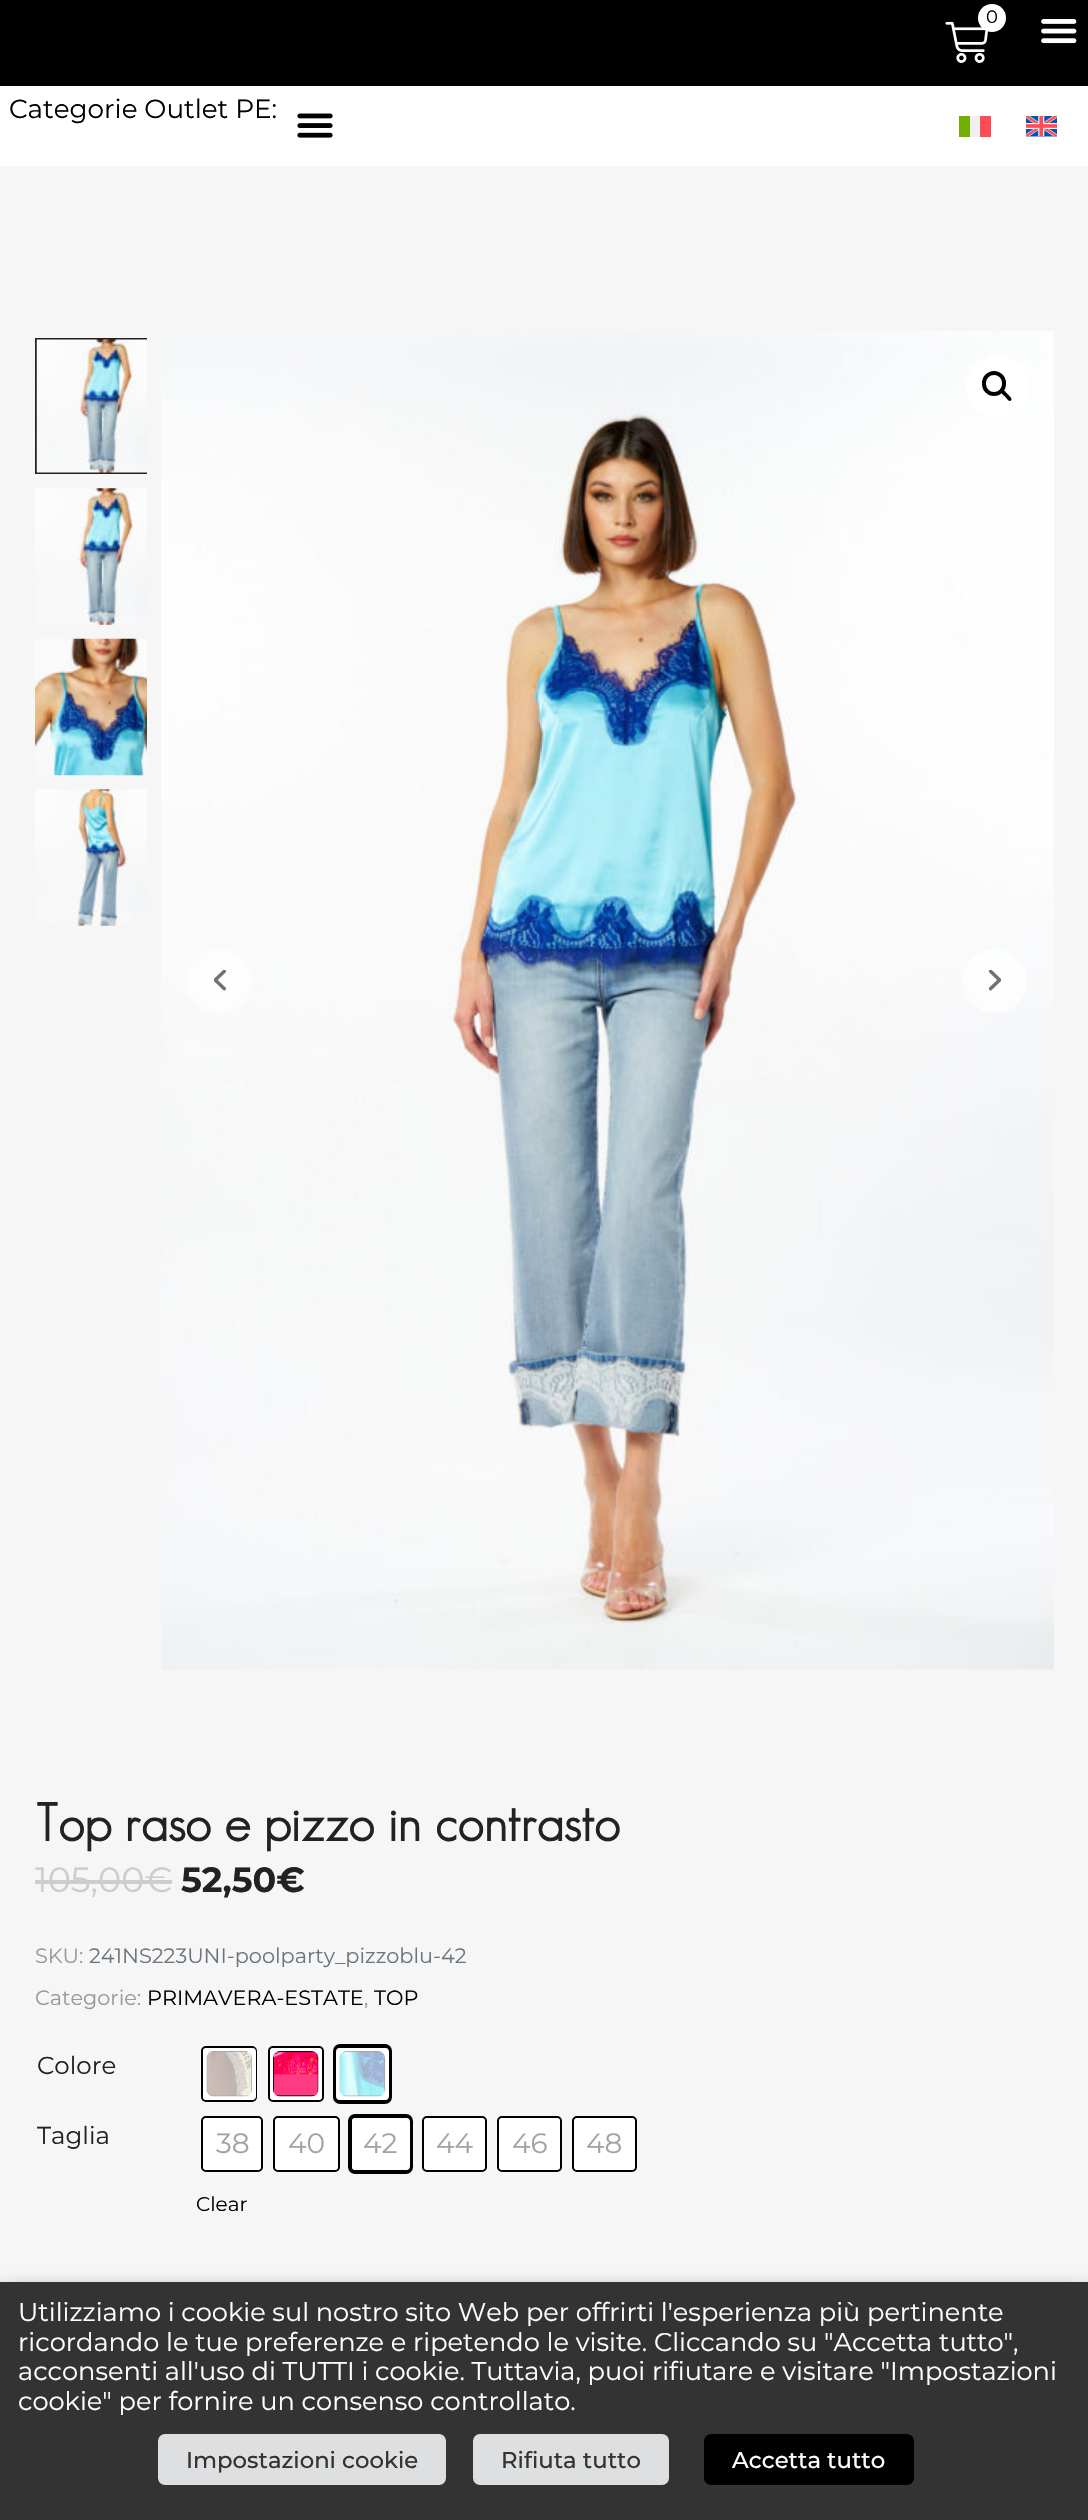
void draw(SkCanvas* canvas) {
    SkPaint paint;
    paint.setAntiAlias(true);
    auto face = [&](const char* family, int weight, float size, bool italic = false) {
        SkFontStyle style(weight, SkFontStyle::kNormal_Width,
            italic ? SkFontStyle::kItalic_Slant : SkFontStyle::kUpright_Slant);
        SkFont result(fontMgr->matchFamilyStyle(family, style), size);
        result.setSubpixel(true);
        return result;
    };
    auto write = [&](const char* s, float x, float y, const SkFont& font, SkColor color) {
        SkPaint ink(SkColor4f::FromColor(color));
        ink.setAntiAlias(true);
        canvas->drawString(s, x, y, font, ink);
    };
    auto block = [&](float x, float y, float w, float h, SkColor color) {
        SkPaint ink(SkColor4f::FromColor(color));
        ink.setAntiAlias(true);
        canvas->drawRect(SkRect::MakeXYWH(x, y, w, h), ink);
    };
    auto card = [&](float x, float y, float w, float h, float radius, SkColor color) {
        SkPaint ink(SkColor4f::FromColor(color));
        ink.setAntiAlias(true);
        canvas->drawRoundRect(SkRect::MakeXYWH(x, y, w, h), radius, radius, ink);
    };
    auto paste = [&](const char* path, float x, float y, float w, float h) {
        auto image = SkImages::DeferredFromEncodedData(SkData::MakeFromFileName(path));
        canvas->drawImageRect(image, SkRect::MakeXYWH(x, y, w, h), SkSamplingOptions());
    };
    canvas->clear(SK_ColorWHITE);
    block(0, 0, 1088, 86, SK_ColorBLACK);
    paste("pic1.png", 945, 21, 43, 42);
    paint.setColor(SK_ColorWHITE);
    canvas->drawCircle(992, 18, 14, paint);
    auto kFont1 = face("Montserrat", 400, 18);
    write("0", 986, 23, kFont1, SK_ColorBLACK);
    paste("pic2.png", 1041, 19, 36, 25);
    auto kFont2 = face("Montserrat", 400, 26.25f);
    write("Categorie Outlet PE:", 9, 118, kFont2, SK_ColorBLACK);
    paste("pic3.png", 297, 113, 36, 25);
    block(959, 116, 11, 21, SkColorSetRGB(115, 175, 0));
    block(970, 116, 10, 21, SkColorSetRGB(240, 240, 240));
    block(980, 116, 11, 21, SkColorSetRGB(255, 75, 85));
    paste("pic4.png", 1026, 116, 31, 21);
    block(0, 166, 1088, 2116, SkColorSetRGB(246, 246, 246));
    canvas->save();
    canvas->clipRect(SkRect::MakeXYWH(35, 331, 112, 602));
    paint.setStyle(SkPaint::kStroke_Style);
    paint.setStrokeWidth(2);
    paint.setColor(SkColorSetRGB(34, 34, 34));
    canvas->drawRect(SkRect::MakeXYWH(36, 339, 135, 134), paint);
    canvas->restore();
    paste("pic5.png", 36, 339, 111, 134);
    paste("pic6.png", 35, 488, 112, 137);
    paste("pic7.png", 35, 638, 112, 138);
    paste("pic8.png", 35, 789, 112, 137);
    paste("pic9.png", 161, 331, 893, 1339);
    paint.setStyle(SkPaint::kFill_Style);
    paint.setColor(SK_ColorWHITE);
    canvas->drawCircle(997.5f, 386.5f, 31.5f, paint);
    paint.setStyle(SkPaint::kStroke_Style);
    paint.setStrokeWidth(4);
    paint.setColor(SK_ColorBLACK);
    canvas->drawRoundRect(SkRect::MakeXYWH(984, 373, 20, 21), 10, 10, paint);
    paint.setStyle(SkPaint::kFill_Style);
    canvas->drawPath(SkPathBuilder().moveTo(1001.5f, 390.5f).cubicTo(1003.5f, 388.5f, 1006.5f, 393, 1007.5f, 394).cubicTo(1008.5f, 395, 1013, 398.5f, 1011, 400.5f).cubicTo(1009, 402.5f, 1006, 397.5f, 1005, 396.5f).cubicTo(1004, 395.5f, 999.5f, 392.5f, 1001.5f, 390.5f).close().detach(), paint);
    card(187, 949, 65, 64, 32, SkColorSetRGB(253, 253, 253));
    paste("pic10.png", 214, 970, 12, 21);
    paint.setColor(SkColorSetARGB(179, 255, 255, 255));
    canvas->drawCircle(995, 981, 32, paint);
    paste("pic11.png", 989, 970, 12, 21);
    auto kFont3 = face("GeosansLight", 700, 52.5f);
    write("Top raso e pizzo in contrasto", 35, 1841, kFont3, SkColorSetRGB(34, 34, 34));
    auto kFont4 = face("Montserrat", 400, 35);
    write("105,00€", 35, 1892, kFont4, SkColorSetRGB(205, 205, 205));
    block(35, 1880, 137, 4, SkColorSetRGB(205, 205, 205));
    auto kFont5 = face("Montserrat", 700, 35);
    write("52,50€", 181, 1892, kFont5, SkColorSetRGB(34, 34, 34));
    auto kFont6 = face("Montserrat", 400, 20.8f);
    write("SKU:", 35, 1963, kFont6, SkColorSetRGB(153, 153, 153));
    write("241NS223UNI-poolparty_pizzoblu-42", 89, 1963, kFont6, SkColorSetRGB(108, 117, 125));
    write("Categorie:", 35, 2005, kFont6, SkColorSetRGB(153, 153, 153));
    write("PRIMAVERA-ESTATE", 147, 2005, kFont6, SK_ColorBLACK);
    write(",", 364, 2005, kFont6, SkColorSetRGB(153, 153, 153));
    write("TOP", 374, 2005, kFont6, SK_ColorBLACK);
    auto kFont7 = face("Montserrat", 400, 24.5f);
    write("Colore", 37, 2074, kFont7, SkColorSetRGB(34, 34, 34));
    paint.setStyle(SkPaint::kStroke_Style);
    paint.setStrokeWidth(2);
    paint.setColor(SK_ColorBLACK);
    canvas->drawRoundRect(SkRect::MakeXYWH(202, 2047, 54, 54), 4, 4, paint);
    card(203, 2048, 53, 52, 4, SK_ColorWHITE);
    paste("pic12.png", 206, 2051, 46, 46);
    canvas->drawRoundRect(SkRect::MakeXYWH(269, 2047, 54, 54), 4, 4, paint);
    card(270, 2048, 52, 52, 4, SK_ColorWHITE);
    paste("pic13.png", 273, 2051, 46, 46);
    paint.setStrokeWidth(4);
    canvas->drawRoundRect(SkRect::MakeXYWH(335, 2046, 55, 56), 5, 5, paint);
    card(336, 2048, 53, 52, 4, SK_ColorWHITE);
    paste("pic14.png", 339, 2051, 46, 46);
    write("Taglia", 37, 2144, kFont7, SkColorSetRGB(34, 34, 34));
    paint.setStrokeWidth(2);
    canvas->drawRoundRect(SkRect::MakeXYWH(202, 2117, 60, 54), 4, 4, paint);
    card(203, 2118, 58, 52, 4, SK_ColorWHITE);
    auto kFont8 = face("Montserrat", 400, 28);
    write("38", 216, 2153, kFont8, SkColorSetRGB(163, 163, 163));
    canvas->drawRoundRect(SkRect::MakeXYWH(274, 2117, 65, 54), 4, 4, paint);
    card(275, 2118, 63, 52, 4, SK_ColorWHITE);
    write("40", 288, 2153, kFont8, SkColorSetRGB(163, 163, 163));
    paint.setStrokeWidth(4);
    canvas->drawRoundRect(SkRect::MakeXYWH(350, 2116, 61, 56), 5, 5, paint);
    card(352, 2118, 58, 52, 4, SK_ColorWHITE);
    write("42", 363, 2153, kFont8, SkColorSetRGB(163, 163, 163));
    paint.setStrokeWidth(2);
    canvas->drawRoundRect(SkRect::MakeXYWH(423, 2117, 63, 54), 4, 4, paint);
    card(424, 2118, 61, 52, 4, SK_ColorWHITE);
    write("44", 436, 2153, kFont8, SkColorSetRGB(163, 163, 163));
    canvas->drawRoundRect(SkRect::MakeXYWH(498, 2117, 63, 54), 4, 4, paint);
    card(499, 2118, 61, 52, 4, SK_ColorWHITE);
    write("46", 512, 2153, kFont8, SkColorSetRGB(163, 163, 163));
    canvas->drawRoundRect(SkRect::MakeXYWH(573, 2117, 63, 54), 4, 4, paint);
    card(574, 2118, 61, 52, 4, SK_ColorWHITE);
    write("48", 586, 2153, kFont8, SkColorSetRGB(163, 163, 163));
    auto kFont9 = face("Montserrat", 400, 20);
    write("Clear", 196, 2211, kFont9, SK_ColorBLACK);
    paint.setStyle(SkPaint::kFill_Style);
    paint.setColor(SkColorSetARGB(128, 0, 0, 0));
    paint.setMaskFilter(SkMaskFilter::MakeBlur(kNormal_SkBlurStyle, 9));
    canvas->drawRect(SkRect::MakeXYWH(0, 2291, 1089, 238), paint);
    paint.setMaskFilter(nullptr);
    block(0, 2282, 1088, 238, SkColorSetRGB(51, 51, 51));
    auto kFont10 = face("Montserrat", 400, 25.65f);
    write("Utilizziamo i cookie sul nostro sito Web per offrirti l'esperienza più pertinente", 18, 2321, kFont10, SK_ColorWHITE);
    write("ricordando le tue preferenze e ripetendo le visite. Cliccando su \"Accetta tutto\",", 18, 2351, kFont10, SK_ColorWHITE);
    write("acconsenti all'uso di TUTTI i cookie. Tuttavia, puoi rifiutare e visitare \"Impostazioni", 18, 2380, kFont10, SK_ColorWHITE);
    write("cookie\" per fornire un consenso controllato.", 18, 2410, kFont10, SK_ColorWHITE);
    card(158, 2434, 288, 51, 7, SkColorSetRGB(222, 223, 224));
    auto kFont11 = face("Montserrat", 500, 22.75f);
    write("Impostazioni cookie", 186, 2468, kFont11, SkColorSetRGB(51, 51, 51));
    card(473, 2434, 196, 51, 7, SkColorSetRGB(222, 223, 224));
    write("Rifiuta tutto", 501, 2468, kFont11, SkColorSetRGB(51, 51, 51));
    card(704, 2434, 210, 51, 7, SK_ColorBLACK);
    write("Accetta tutto", 732, 2468, kFont11, SK_ColorWHITE);
}
